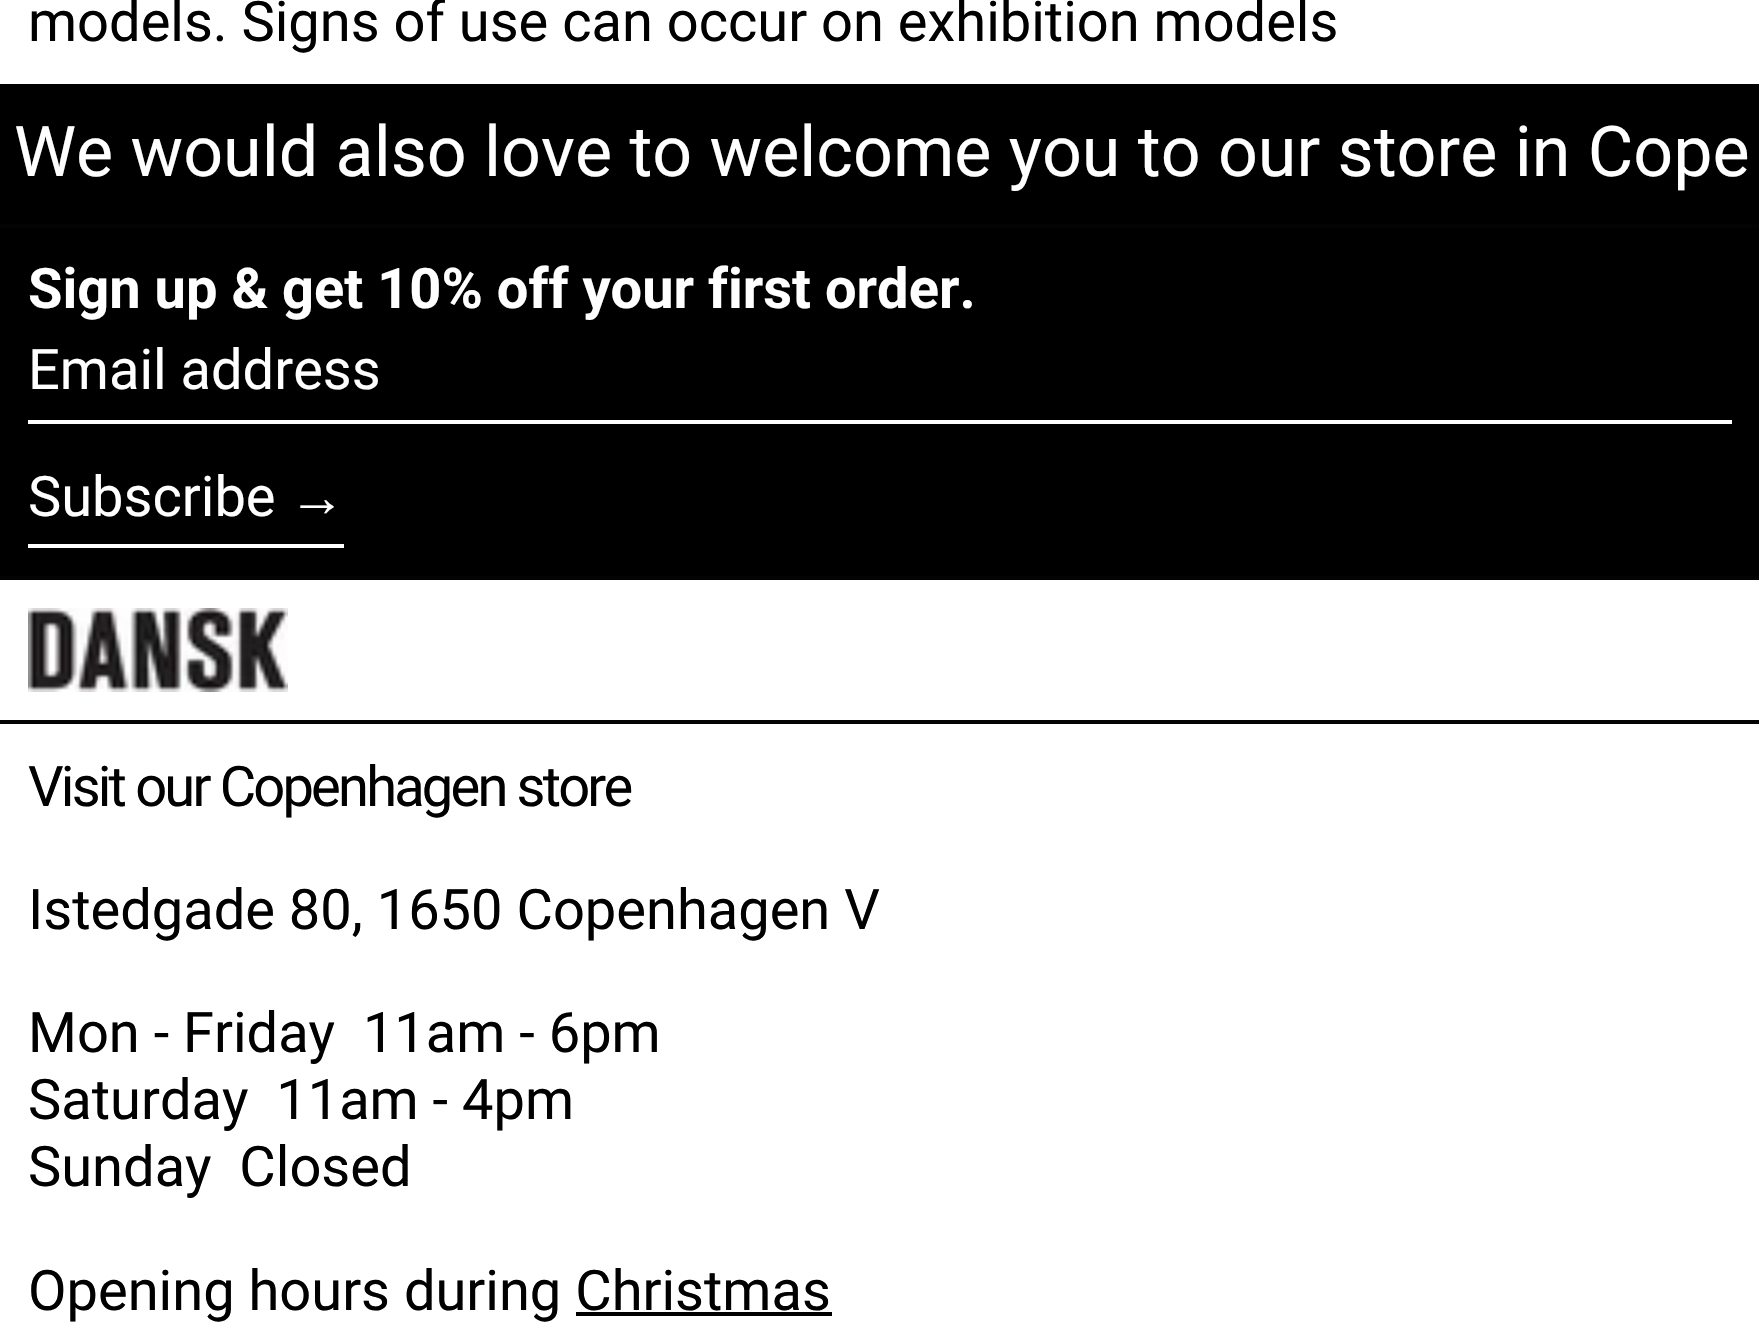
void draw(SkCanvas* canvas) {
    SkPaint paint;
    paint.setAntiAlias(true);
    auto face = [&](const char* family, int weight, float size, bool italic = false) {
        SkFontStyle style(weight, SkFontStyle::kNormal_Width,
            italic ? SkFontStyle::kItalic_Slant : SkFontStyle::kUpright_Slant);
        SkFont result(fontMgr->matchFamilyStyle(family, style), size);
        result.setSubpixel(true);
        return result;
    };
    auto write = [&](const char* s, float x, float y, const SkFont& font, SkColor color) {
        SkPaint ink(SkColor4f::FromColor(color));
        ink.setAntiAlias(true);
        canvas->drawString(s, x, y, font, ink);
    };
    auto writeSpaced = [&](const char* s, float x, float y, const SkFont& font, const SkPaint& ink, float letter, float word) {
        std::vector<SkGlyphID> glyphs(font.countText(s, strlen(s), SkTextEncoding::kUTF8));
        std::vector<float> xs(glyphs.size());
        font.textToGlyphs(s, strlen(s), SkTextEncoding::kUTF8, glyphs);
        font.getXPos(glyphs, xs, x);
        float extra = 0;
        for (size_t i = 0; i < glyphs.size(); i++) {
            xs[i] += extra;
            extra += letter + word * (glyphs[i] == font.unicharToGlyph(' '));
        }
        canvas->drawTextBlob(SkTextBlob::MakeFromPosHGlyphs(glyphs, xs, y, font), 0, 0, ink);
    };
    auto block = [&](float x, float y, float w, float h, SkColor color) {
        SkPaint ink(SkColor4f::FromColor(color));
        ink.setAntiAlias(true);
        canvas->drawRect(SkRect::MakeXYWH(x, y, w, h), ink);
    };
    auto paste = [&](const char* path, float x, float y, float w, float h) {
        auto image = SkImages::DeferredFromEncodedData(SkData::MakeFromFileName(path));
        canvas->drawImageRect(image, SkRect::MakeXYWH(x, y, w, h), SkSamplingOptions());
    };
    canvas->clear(SK_ColorBLACK);
    block(0, 0, 1759, 84, SK_ColorWHITE);
    auto kFont1 = face("Roboto", 400, 56);
    write("models. Signs of use can occur on exhibition models", 28, 41, kFont1, SK_ColorBLACK);
    block(0, 224, 1759, 4, SkColorSetRGB(3, 3, 3));
    auto kFont2 = face("Roboto", 400, 70);
    write("We would also love to welcome you to our store in Cope", 14, 176, kFont2, SK_ColorWHITE);
    block(0, 576, 1759, 4, SkColorSetRGB(3, 3, 3));
    auto kFont3 = face("Roboto", 700, 56);
    write("Sign up & get 10% off your first order.", 28, 308, kFont3, SK_ColorWHITE);
    block(28, 420, 1704, 4, SK_ColorWHITE);
    write("Email address", 28, 389, kFont1, SK_ColorWHITE);
    block(28, 544, 316, 4, SK_ColorWHITE);
    write("Subscribe", 28, 516, kFont1, SK_ColorWHITE);
    auto kFont4 = face("Liberation Sans", 400, 56);
    write("→", 289, 516, kFont4, SK_ColorWHITE);
    block(0, 720, 1759, 4, SkColorSetRGB(3, 3, 3));
    block(0, 580, 1759, 140, SK_ColorWHITE);
    paste("pic1.png", 28, 608, 260, 84);
    block(0, 724, 1759, 602, SK_ColorWHITE);
    paint.setColor(SK_ColorBLACK);
    writeSpaced("Visit our Copenhagen store", 28, 806, kFont1, paint, -2.8f, 0);
    write("Istedgade 80, 1650 Copenhagen V", 28, 929, kFont1, SK_ColorBLACK);
    write("Mon - Friday  11am - 6pm", 28, 1052, kFont1, SK_ColorBLACK);
    write("Saturday  11am - 4pm", 28, 1119, kFont1, SK_ColorBLACK);
    write("Sunday  Closed", 28, 1186, kFont1, SK_ColorBLACK);
    write("Opening hours during Christmas", 28, 1310, kFont1, SK_ColorBLACK);
    block(576, 1312, 256, 4, SK_ColorBLACK);
}
